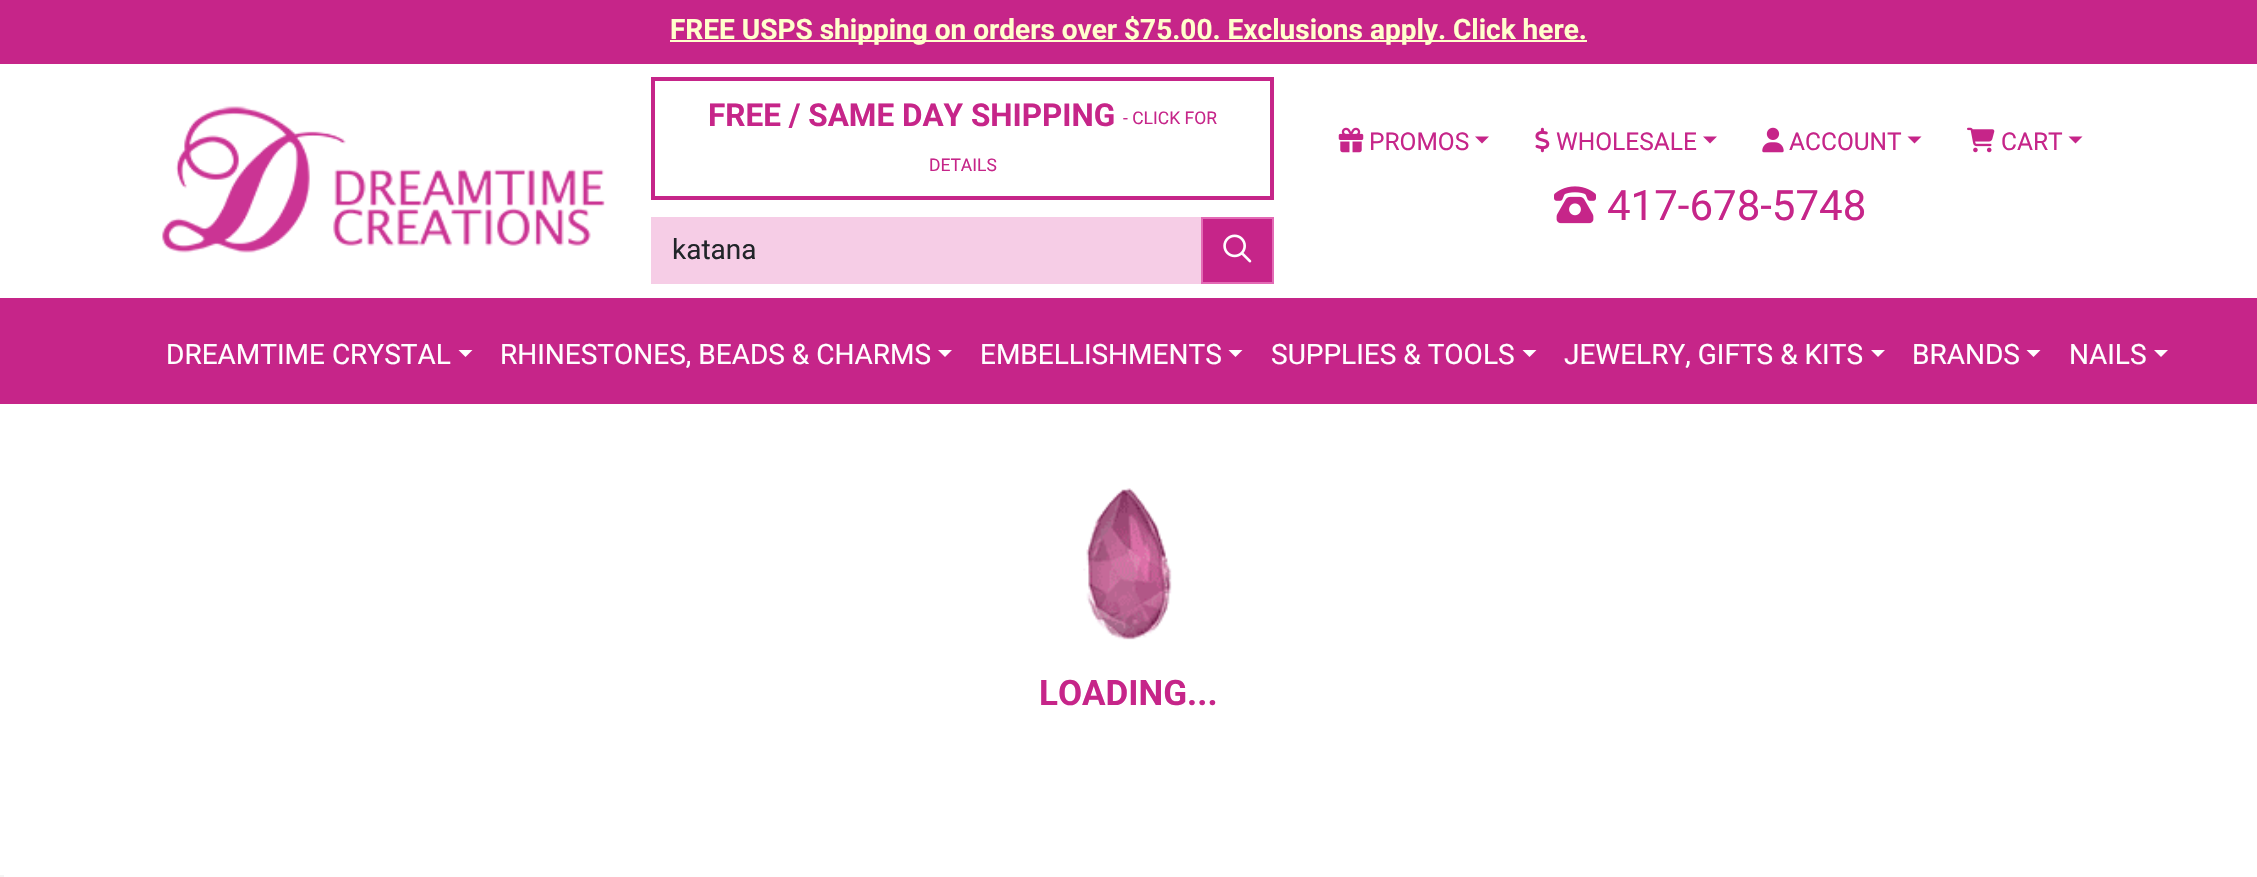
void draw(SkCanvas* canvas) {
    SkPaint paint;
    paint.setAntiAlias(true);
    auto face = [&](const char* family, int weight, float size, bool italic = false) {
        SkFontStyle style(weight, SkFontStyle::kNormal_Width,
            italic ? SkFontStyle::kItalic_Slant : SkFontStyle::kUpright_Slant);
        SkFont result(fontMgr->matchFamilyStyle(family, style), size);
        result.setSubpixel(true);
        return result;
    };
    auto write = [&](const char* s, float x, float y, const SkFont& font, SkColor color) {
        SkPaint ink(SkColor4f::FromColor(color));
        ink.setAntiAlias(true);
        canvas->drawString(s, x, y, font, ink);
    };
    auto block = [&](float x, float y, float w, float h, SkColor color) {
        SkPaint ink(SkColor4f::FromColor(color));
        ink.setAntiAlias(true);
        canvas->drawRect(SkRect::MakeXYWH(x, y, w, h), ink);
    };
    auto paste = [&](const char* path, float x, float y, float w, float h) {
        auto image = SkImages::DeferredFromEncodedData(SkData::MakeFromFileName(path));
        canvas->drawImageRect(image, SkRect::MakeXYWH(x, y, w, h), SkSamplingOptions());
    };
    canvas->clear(SK_ColorWHITE);
    block(0, 0, 2257, 64, SkColorSetRGB(198, 37, 137));
    block(670, 40, 917, 2, SkColorSetRGB(255, 255, 204));
    auto kFont1 = face("Roboto", 700, 28);
    write("FREE USPS shipping on orders over $75.00. Exclusions apply. Click here.", 670, 39, kFont1, SkColorSetRGB(255, 255, 204));
    paste("pic1.png", 162, 106, 443, 147);
    paint.setStyle(SkPaint::kStroke_Style);
    paint.setStrokeWidth(4);
    paint.setColor(SkColorSetRGB(198, 37, 137));
    canvas->drawRect(SkRect::MakeXYWH(653, 79, 619, 119), paint);
    auto kFont2 = face("Roboto", 700, 31.5f);
    write("FREE / SAME DAY SHIPPING", 708, 126, kFont2, SkColorSetRGB(198, 37, 137));
    auto kFont3 = face("Roboto", 400, 17.5f);
    write("- CLICK FOR", 1123, 124, kFont3, SkColorSetRGB(198, 37, 137));
    write("DETAILS", 929, 171, kFont3, SkColorSetRGB(198, 37, 137));
    block(651, 217, 550, 67, SkColorSetRGB(246, 205, 230));
    auto kFont4 = face("Roboto", 400, 28);
    write("katana", 672, 259, kFont4, SkColorSetRGB(33, 37, 41));
    paint.setStyle(SkPaint::kFill_Style);
    canvas->drawRect(SkRect::MakeXYWH(1202, 218, 71, 65), paint);
    paint.setStyle(SkPaint::kStroke_Style);
    paint.setStrokeWidth(2);
    paint.setColor(SkColorSetRGB(227, 106, 181));
    canvas->drawRect(SkRect::MakeXYWH(1202, 218, 71, 65), paint);
    paste("pic2.png", 1223, 234, 29, 29);
    paste("pic3.png", 1338, 127, 26, 26);
    auto kFont5 = face("Roboto", 400, 24.5f);
    write("PROMOS", 1369, 150, kFont5, SkColorSetRGB(198, 37, 137));
    paint.setStyle(SkPaint::kFill_Style);
    paint.setColor(SkColorSetRGB(198, 37, 137));
    canvas->drawPath(SkPathBuilder().moveTo(1475, 136.5f).lineTo(1489, 136.5f).lineTo(1482, 143.5f).close().detach(), paint);
    paste("pic4.png", 1535, 127, 15, 26);
    write("WHOLESALE", 1556, 150, kFont5, SkColorSetRGB(198, 37, 137));
    canvas->drawPath(SkPathBuilder().moveTo(1703, 136.5f).lineTo(1717, 136.5f).lineTo(1710, 143.5f).close().detach(), paint);
    paste("pic5.png", 1762, 127, 22, 26);
    write("ACCOUNT", 1789, 150, kFont5, SkColorSetRGB(198, 37, 137));
    canvas->drawPath(SkPathBuilder().moveTo(1907.5f, 136.5f).lineTo(1921.5f, 136.5f).lineTo(1914.5f, 143.5f).close().detach(), paint);
    paste("pic6.png", 1967, 127, 28, 26);
    write("CART", 2001, 150, kFont5, SkColorSetRGB(198, 37, 137));
    canvas->drawPath(SkPathBuilder().moveTo(2068.5f, 136.5f).lineTo(2082.5f, 136.5f).lineTo(2075.5f, 143.5f).close().detach(), paint);
    paste("pic7.png", 1554, 186, 42, 38);
    auto kFont6 = face("Roboto", 400, 42);
    write("417-678-5748", 1607, 220, kFont6, SkColorSetRGB(198, 37, 137));
    block(0, 298, 2257, 106, SkColorSetRGB(198, 37, 137));
    write("DREAMTIME CRYSTAL", 166, 364, kFont4, SK_ColorWHITE);
    paint.setColor(SK_ColorWHITE);
    canvas->drawPath(SkPathBuilder().moveTo(458.5f, 350).lineTo(472.5f, 350).lineTo(465.5f, 357).close().detach(), paint);
    write("RHINESTONES, BEADS & CHARMS", 500, 364, kFont4, SK_ColorWHITE);
    canvas->drawPath(SkPathBuilder().moveTo(938, 350).lineTo(952, 350).lineTo(945, 357).close().detach(), paint);
    write("EMBELLISHMENTS", 980, 364, kFont4, SK_ColorWHITE);
    canvas->drawPath(SkPathBuilder().moveTo(1228.5f, 350).lineTo(1242.5f, 350).lineTo(1235.5f, 357).close().detach(), paint);
    write("SUPPLIES & TOOLS", 1271, 364, kFont4, SK_ColorWHITE);
    canvas->drawPath(SkPathBuilder().moveTo(1522.5f, 350).lineTo(1536.5f, 350).lineTo(1529.5f, 357).close().detach(), paint);
    write("JEWELRY, GIFTS & KITS", 1564, 364, kFont4, SK_ColorWHITE);
    canvas->drawPath(SkPathBuilder().moveTo(1871, 350).lineTo(1885, 350).lineTo(1878, 357).close().detach(), paint);
    write("BRANDS", 1912, 364, kFont4, SK_ColorWHITE);
    canvas->drawPath(SkPathBuilder().moveTo(2026.5f, 350).lineTo(2040.5f, 350).lineTo(2033.5f, 357).close().detach(), paint);
    write("NAILS", 2069, 364, kFont4, SK_ColorWHITE);
    canvas->drawPath(SkPathBuilder().moveTo(2154, 350).lineTo(2168, 350).lineTo(2161, 357).close().detach(), paint);
    paste("pic8.png", 1083, 488, 89, 152);
    auto kFont7 = face("Roboto", 700, 35);
    write("LOADING...", 1039, 705, kFont7, SkColorSetRGB(198, 37, 137));
    block(0, 875, 4, 2, SkColorSetRGB(245, 245, 245));
}
